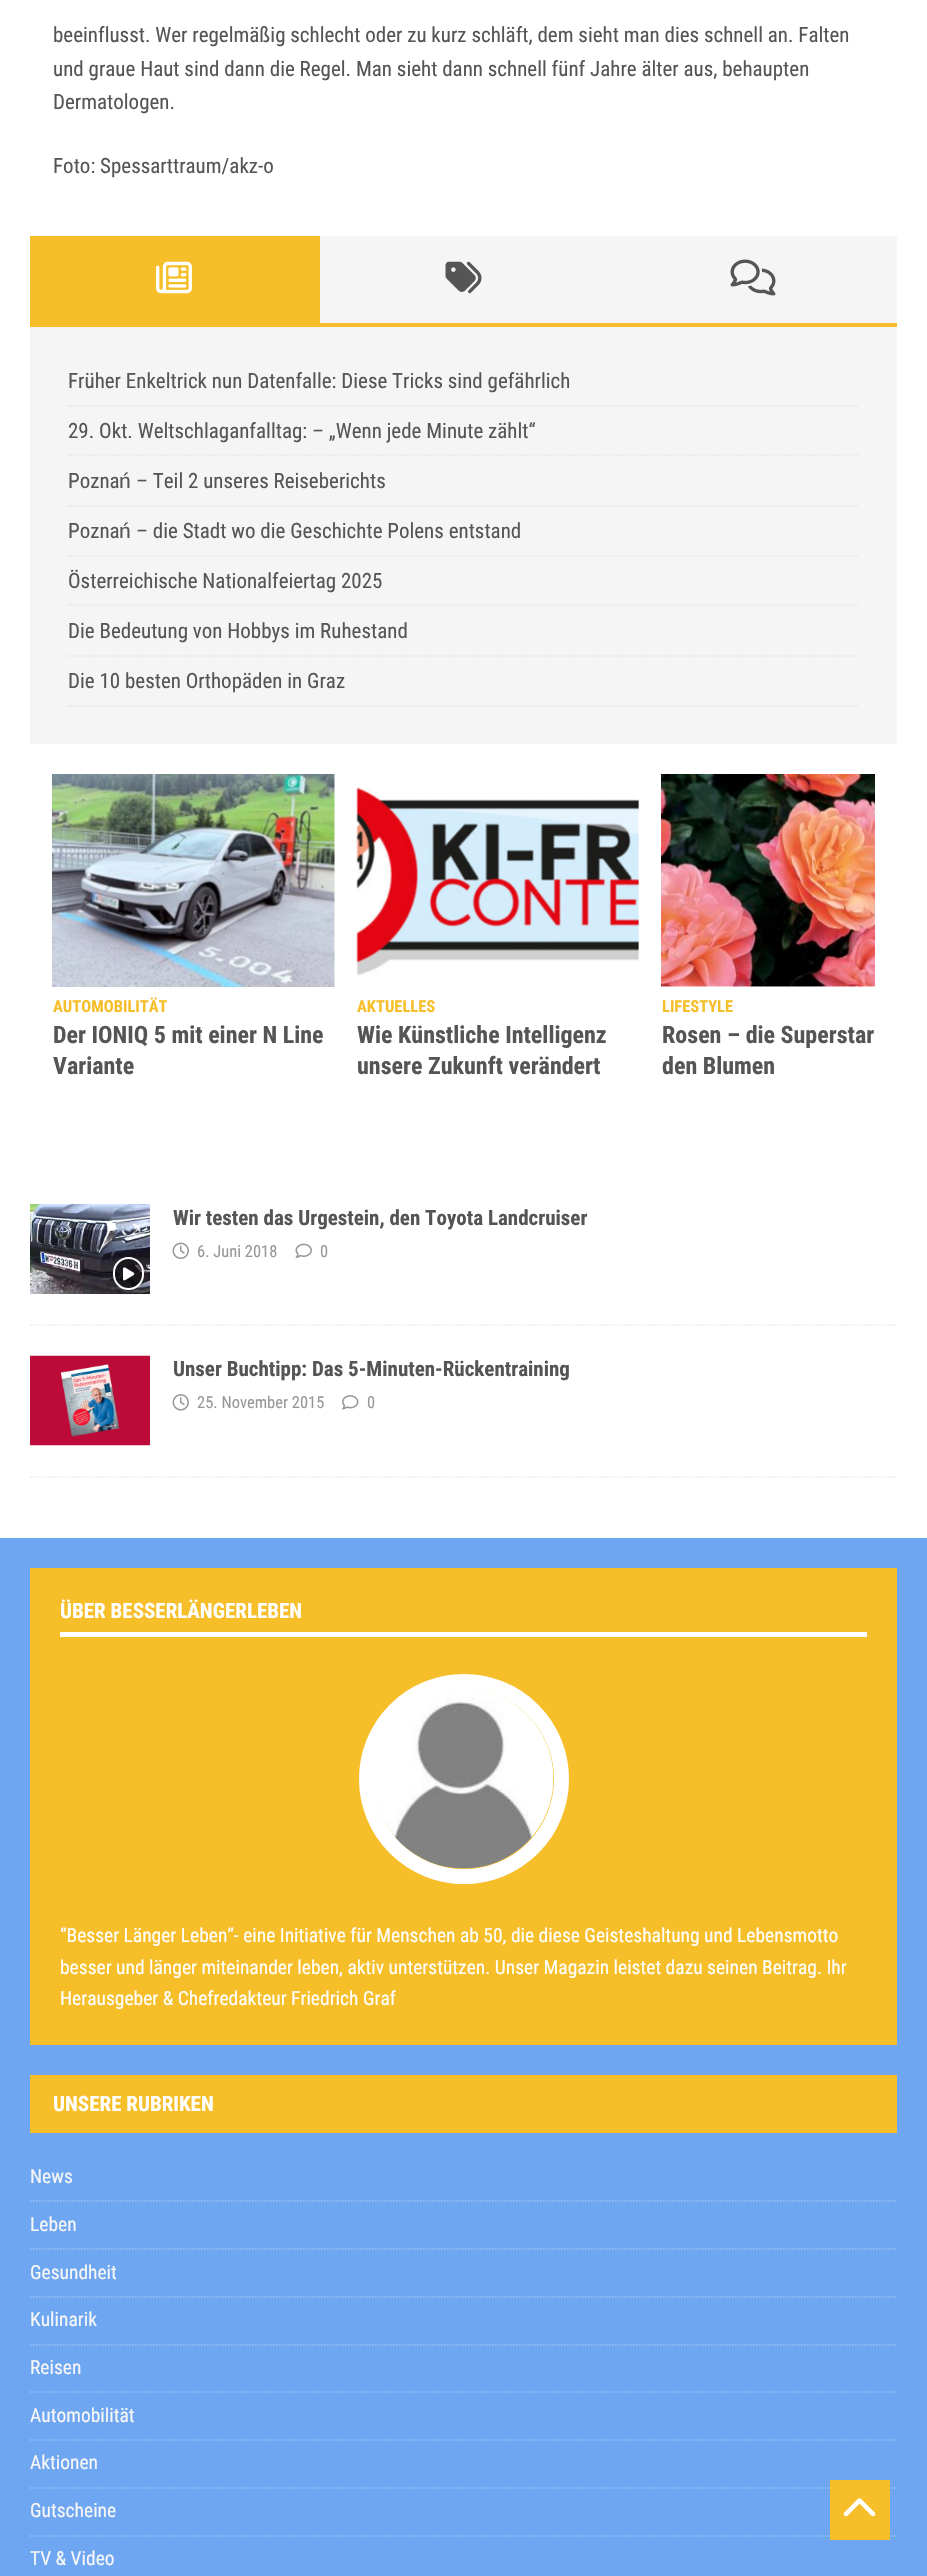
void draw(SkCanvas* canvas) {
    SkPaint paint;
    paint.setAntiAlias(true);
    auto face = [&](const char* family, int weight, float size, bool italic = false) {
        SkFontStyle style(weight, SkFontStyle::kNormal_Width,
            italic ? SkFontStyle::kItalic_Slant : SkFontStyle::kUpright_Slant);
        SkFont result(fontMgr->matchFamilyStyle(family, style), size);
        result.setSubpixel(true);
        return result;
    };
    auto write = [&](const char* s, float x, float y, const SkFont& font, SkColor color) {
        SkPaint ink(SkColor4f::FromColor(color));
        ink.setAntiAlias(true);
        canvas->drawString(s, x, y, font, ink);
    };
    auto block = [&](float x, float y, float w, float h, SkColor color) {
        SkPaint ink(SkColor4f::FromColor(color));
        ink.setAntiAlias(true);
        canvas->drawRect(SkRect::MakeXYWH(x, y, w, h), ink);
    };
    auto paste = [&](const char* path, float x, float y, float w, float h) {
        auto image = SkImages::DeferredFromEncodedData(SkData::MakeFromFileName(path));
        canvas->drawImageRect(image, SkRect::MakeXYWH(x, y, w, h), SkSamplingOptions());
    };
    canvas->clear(SkColorSetRGB(110, 166, 241));
    block(0, 0, 927, 1538, SK_ColorWHITE);
    auto kFont1 = face("Roboto Condensed", 400, 21);
    write("beeinflusst. Wer regelmäßig schlecht oder zu kurz schläft, dem sieht man dies schnell an. Falten", 53, 42, kFont1, SkColorSetRGB(85, 85, 85));
    write("und graue Haut sind dann die Regel. Man sieht dann schnell fünf Jahre älter aus, behaupten", 53, 76, kFont1, SkColorSetRGB(85, 85, 85));
    write("Dermatologen.", 53, 109, kFont1, SkColorSetRGB(85, 85, 85));
    write("Foto: Spessarttraum/akz-o", 53, 173, kFont1, SkColorSetRGB(85, 85, 85));
    block(30, 323, 867, 4, SkColorSetRGB(246, 190, 41));
    block(30, 236, 290, 87, SkColorSetRGB(246, 190, 41));
    paste("pic1.png", 156, 261, 36, 33);
    block(320, 236, 577, 87, SkColorSetRGB(245, 245, 245));
    paste("pic2.png", 445, 261, 37, 33);
    paste("pic3.png", 730, 259, 46, 37);
    block(30, 327, 867, 417, SkColorSetRGB(245, 245, 245));
    paint.setStyle(SkPaint::kStroke_Style);
    paint.setStrokeWidth(1.5f);
    paint.setColor(SkColorSetRGB(229, 229, 229));
    paint.setPathEffect(SkDashPathEffect::Make({{1.5f, 1.5f}}, 0));
    canvas->drawPath(SkPathBuilder().moveTo(67.5f, 406).lineTo(859.5f, 406).detach(), paint);
    paint.setPathEffect(nullptr);
    write("Früher Enkeltrick nun Datenfalle: Diese Tricks sind gefährlich", 68, 388, kFont1, SkColorSetRGB(85, 85, 85));
    paint.setPathEffect(SkDashPathEffect::Make({{1.5f, 1.5f}}, 0));
    canvas->drawPath(SkPathBuilder().moveTo(67.5f, 455).lineTo(859.5f, 455).detach(), paint);
    paint.setPathEffect(nullptr);
    write("29. Okt. Weltschlaganfalltag: – „Wenn jede Minute zählt“", 68, 438, kFont1, SkColorSetRGB(85, 85, 85));
    paint.setPathEffect(SkDashPathEffect::Make({{1.5f, 1.5f}}, 0));
    canvas->drawPath(SkPathBuilder().moveTo(67.5f, 506).lineTo(859.5f, 506).detach(), paint);
    paint.setPathEffect(nullptr);
    write("Pozna", 68, 488, kFont1, SkColorSetRGB(85, 85, 85));
    auto kFont2 = face("Liberation Sans", 400, 21);
    write("ń", 119, 488, kFont2, SkColorSetRGB(85, 85, 85));
    write("– Teil 2 unseres Reiseberichts", 136, 488, kFont1, SkColorSetRGB(85, 85, 85));
    paint.setPathEffect(SkDashPathEffect::Make({{1.5f, 1.5f}}, 0));
    canvas->drawPath(SkPathBuilder().moveTo(67.5f, 556).lineTo(859.5f, 556).detach(), paint);
    paint.setPathEffect(nullptr);
    write("Pozna", 68, 538, kFont1, SkColorSetRGB(85, 85, 85));
    write("ń", 119, 538, kFont2, SkColorSetRGB(85, 85, 85));
    write("– die Stadt wo die Geschichte Polens entstand", 136, 538, kFont1, SkColorSetRGB(85, 85, 85));
    paint.setPathEffect(SkDashPathEffect::Make({{1.5f, 1.5f}}, 0));
    canvas->drawPath(SkPathBuilder().moveTo(67.5f, 605).lineTo(859.5f, 605).detach(), paint);
    paint.setPathEffect(nullptr);
    write("Österreichische Nationalfeiertag 2025", 68, 588, kFont1, SkColorSetRGB(85, 85, 85));
    paint.setPathEffect(SkDashPathEffect::Make({{1.5f, 1.5f}}, 0));
    canvas->drawPath(SkPathBuilder().moveTo(67.5f, 656).lineTo(859.5f, 656).detach(), paint);
    paint.setPathEffect(nullptr);
    write("Die Bedeutung von Hobbys im Ruhestand", 68, 638, kFont1, SkColorSetRGB(85, 85, 85));
    paint.setPathEffect(SkDashPathEffect::Make({{1.5f, 1.5f}}, 0));
    canvas->drawPath(SkPathBuilder().moveTo(67.5f, 706).lineTo(859.5f, 706).detach(), paint);
    paint.setPathEffect(nullptr);
    write("Die 10 besten Orthopäden in Graz", 68, 688, kFont1, SkColorSetRGB(85, 85, 85));
    paste("pic4.png", 52, 774, 283, 213);
    auto kFont3 = face("Roboto Condensed", 700, 16.5f);
    write("AUTOMOBILITÄT", 53, 1012, kFont3, SkColorSetRGB(246, 190, 41));
    auto kFont4 = face("Roboto Condensed", 700, 24);
    write("Der IONIQ 5 mit einer N Line", 53, 1043, kFont4, SkColorSetRGB(85, 85, 85));
    write("Variante", 53, 1074, kFont4, SkColorSetRGB(85, 85, 85));
    paste("pic5.png", 356, 787, 283, 189);
    write("AKTUELLES", 357, 1012, kFont3, SkColorSetRGB(246, 190, 41));
    write("Wie Künstliche Intelligenz", 357, 1043, kFont4, SkColorSetRGB(85, 85, 85));
    write("unsere Zukunft verändert", 357, 1074, kFont4, SkColorSetRGB(85, 85, 85));
    paste("pic6.png", 661, 774, 214, 213);
    write("LIFESTYLE", 662, 1012, kFont3, SkColorSetRGB(246, 190, 41));
    write("Rosen – die Superstar", 662, 1043, kFont4, SkColorSetRGB(85, 85, 85));
    write("den Blumen", 662, 1074, kFont4, SkColorSetRGB(85, 85, 85));
    paint.setColor(SkColorSetRGB(235, 235, 235));
    paint.setPathEffect(SkDashPathEffect::Make({{1.5f, 1.5f}}, 0));
    canvas->drawPath(SkPathBuilder().moveTo(30, 1325).lineTo(897, 1325).detach(), paint);
    paint.setPathEffect(nullptr);
    paste("pic7.png", 30, 1204, 120, 90);
    paint.setStyle(SkPaint::kFill_Style);
    paint.setColor(SkColorSetARGB(102, 0, 0, 0));
    canvas->drawRoundRect(SkRect::MakeXYWH(114, 1258, 29, 31), 14.5f, 14.5f, paint);
    paint.setStyle(SkPaint::kStroke_Style);
    paint.setStrokeWidth(2);
    paint.setColor(SK_ColorWHITE);
    canvas->drawRoundRect(SkRect::MakeXYWH(114, 1258, 29, 31), 14.5f, 14.5f, paint);
    paste("pic8.png", 123, 1267, 12, 14);
    auto kFont5 = face("Roboto Condensed", 700, 21);
    write("Wir testen das Urgestein, den Toyota Landcruiser", 173, 1225, kFont5, SkColorSetRGB(85, 85, 85));
    paste("pic9.png", 172, 1242, 17, 17);
    auto kFont6 = face("Roboto Condensed", 400, 16.5f);
    write("6. Juni 2018", 197, 1257, kFont6, SkColorSetRGB(151, 151, 151));
    paste("pic10.png", 295, 1243, 17, 15);
    write("0", 320, 1257, kFont6, SkColorSetRGB(151, 151, 151));
    paint.setStrokeWidth(1.5f);
    paint.setColor(SkColorSetRGB(235, 235, 235));
    paint.setPathEffect(SkDashPathEffect::Make({{1.5f, 1.5f}}, 0));
    canvas->drawPath(SkPathBuilder().moveTo(30, 1477).lineTo(897, 1477).detach(), paint);
    paint.setPathEffect(nullptr);
    paste("pic11.png", 30, 1355, 120, 91);
    write("Unser Buchtipp: Das 5-Minuten-Rückentraining", 173, 1376, kFont5, SkColorSetRGB(85, 85, 85));
    paste("pic12.png", 172, 1394, 17, 17);
    write("25. November 2015", 197, 1408, kFont6, SkColorSetRGB(151, 151, 151));
    paste("pic13.png", 342, 1395, 17, 15);
    write("0", 367, 1408, kFont6, SkColorSetRGB(151, 151, 151));
    paint.setColor(SkColorSetRGB(154, 193, 245));
    paint.setPathEffect(SkDashPathEffect::Make({{1.5f, 1.5f}}, 0));
    canvas->drawPath(SkPathBuilder().moveTo(30, 2536).lineTo(897, 2536).detach(), paint);
    paint.setPathEffect(nullptr);
    paint.setPathEffect(SkDashPathEffect::Make({{1.5f, 1.5f}}, 0));
    canvas->drawPath(SkPathBuilder().moveTo(30, 2488).lineTo(897, 2488).detach(), paint);
    paint.setPathEffect(nullptr);
    block(830, 2480, 60, 60, SkColorSetRGB(246, 190, 41));
    paste("pic14.png", 843, 2498, 33, 19);
    block(30, 1568, 867, 477, SkColorSetRGB(246, 190, 41));
    block(60, 1632, 807, 5, SK_ColorWHITE);
    write("ÜBER BESSERLÄNGERLEBEN", 60, 1618, kFont5, SK_ColorWHITE);
    paint.setStrokeWidth(15);
    paint.setColor(SK_ColorWHITE);
    canvas->drawCircle(464, 1779, 97.5f, paint);
    paste("pic15.png", 374, 1689, 180, 180);
    auto kFont7 = face("Roboto Condensed", 400, 19.5f);
    write("“Besser Länger Leben“- eine Initiative für Menschen ab 50, die diese Geisteshaltung und Lebensmotto", 60, 1942, kFont7, SK_ColorWHITE);
    write("besser und länger miteinander leben, aktiv unterstützen. Unser Magazin leistet dazu seinen Beitrag. Ihr", 60, 1974, kFont7, SK_ColorWHITE);
    write("Herausgeber & Chefredakteur Friedrich Graf", 60, 2005, kFont7, SK_ColorWHITE);
    block(30, 2075, 867, 58, SkColorSetRGB(246, 190, 41));
    write("UNSERE RUBRIKEN", 53, 2111, kFont5, SK_ColorWHITE);
    paint.setStrokeWidth(1.5f);
    paint.setColor(SkColorSetRGB(154, 193, 245));
    paint.setPathEffect(SkDashPathEffect::Make({{1.5f, 1.5f}}, 0));
    canvas->drawPath(SkPathBuilder().moveTo(30, 2201).lineTo(897, 2201).detach(), paint);
    paint.setPathEffect(nullptr);
    write("News", 30, 2183, kFont7, SkColorSetRGB(247, 247, 247));
    paint.setPathEffect(SkDashPathEffect::Make({{1.5f, 1.5f}}, 0));
    canvas->drawPath(SkPathBuilder().moveTo(30, 2249).lineTo(897, 2249).detach(), paint);
    paint.setPathEffect(nullptr);
    write("Leben", 30, 2231, kFont7, SkColorSetRGB(247, 247, 247));
    paint.setPathEffect(SkDashPathEffect::Make({{1.5f, 1.5f}}, 0));
    canvas->drawPath(SkPathBuilder().moveTo(30, 2297).lineTo(897, 2297).detach(), paint);
    paint.setPathEffect(nullptr);
    write("Gesundheit", 30, 2279, kFont7, SkColorSetRGB(247, 247, 247));
    paint.setPathEffect(SkDashPathEffect::Make({{1.5f, 1.5f}}, 0));
    canvas->drawPath(SkPathBuilder().moveTo(30, 2345).lineTo(897, 2345).detach(), paint);
    paint.setPathEffect(nullptr);
    write("Kulinarik", 30, 2326, kFont7, SkColorSetRGB(247, 247, 247));
    paint.setPathEffect(SkDashPathEffect::Make({{1.5f, 1.5f}}, 0));
    canvas->drawPath(SkPathBuilder().moveTo(30, 2392).lineTo(897, 2392).detach(), paint);
    paint.setPathEffect(nullptr);
    write("Reisen", 30, 2374, kFont7, SkColorSetRGB(247, 247, 247));
    paint.setPathEffect(SkDashPathEffect::Make({{1.5f, 1.5f}}, 0));
    canvas->drawPath(SkPathBuilder().moveTo(30, 2440).lineTo(897, 2440).detach(), paint);
    paint.setPathEffect(nullptr);
    write("Automobilität", 30, 2422, kFont7, SkColorSetRGB(247, 247, 247));
    write("Aktionen", 30, 2469, kFont7, SkColorSetRGB(247, 247, 247));
    write("Gutscheine", 30, 2517, kFont7, SkColorSetRGB(247, 247, 247));
    write("TV & Video", 30, 2565, kFont7, SkColorSetRGB(247, 247, 247));
}
